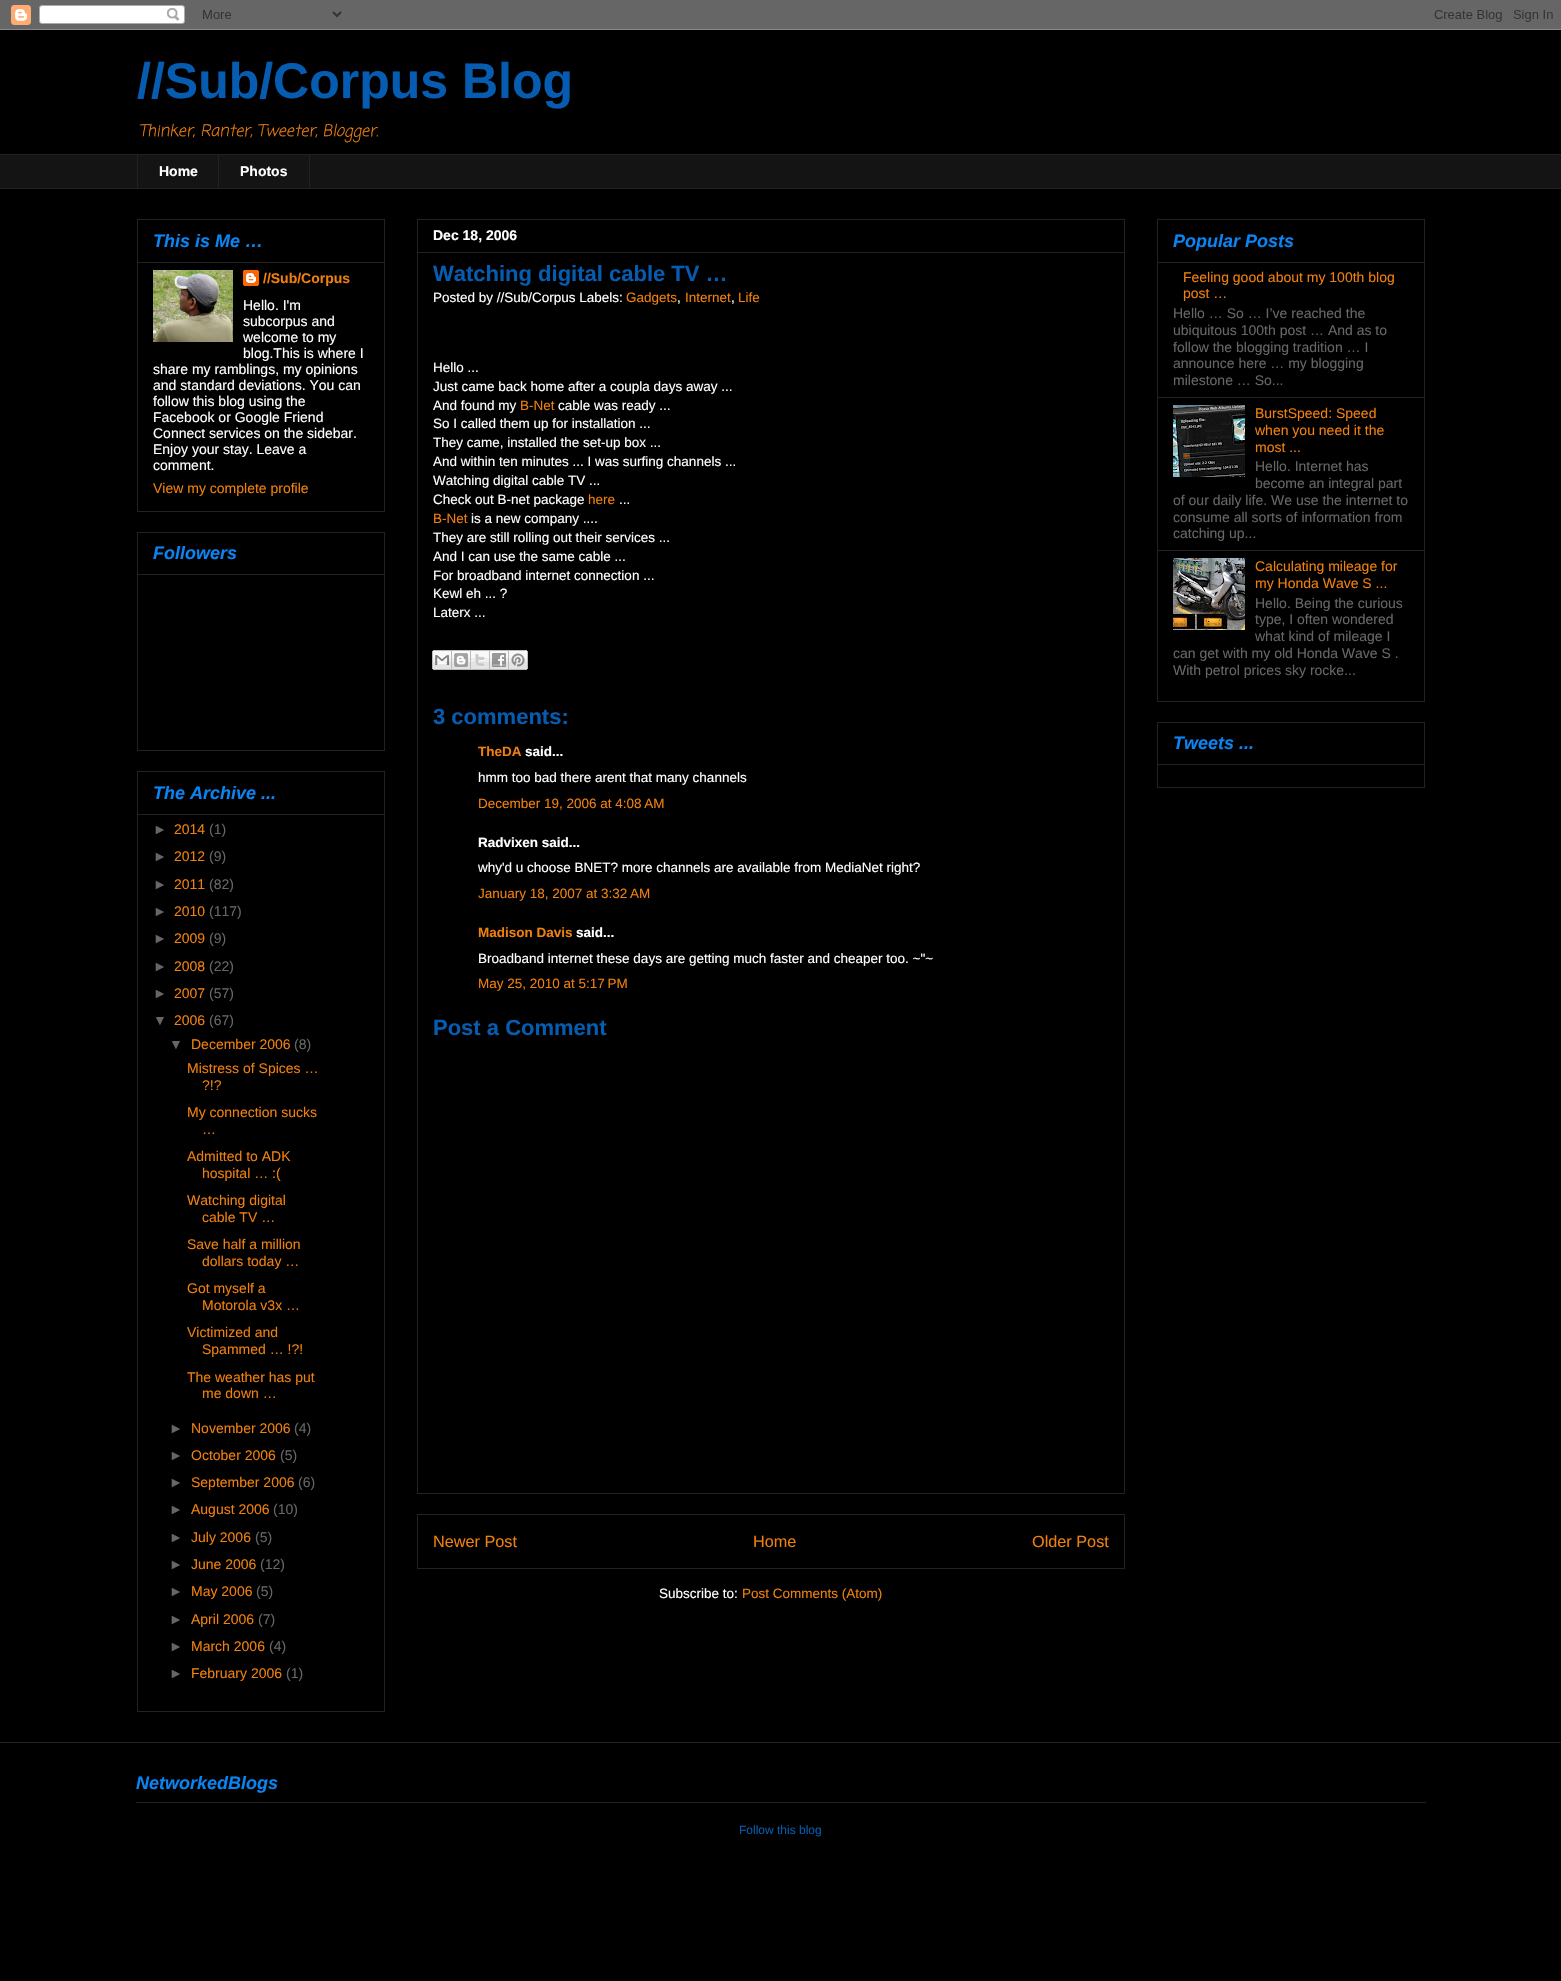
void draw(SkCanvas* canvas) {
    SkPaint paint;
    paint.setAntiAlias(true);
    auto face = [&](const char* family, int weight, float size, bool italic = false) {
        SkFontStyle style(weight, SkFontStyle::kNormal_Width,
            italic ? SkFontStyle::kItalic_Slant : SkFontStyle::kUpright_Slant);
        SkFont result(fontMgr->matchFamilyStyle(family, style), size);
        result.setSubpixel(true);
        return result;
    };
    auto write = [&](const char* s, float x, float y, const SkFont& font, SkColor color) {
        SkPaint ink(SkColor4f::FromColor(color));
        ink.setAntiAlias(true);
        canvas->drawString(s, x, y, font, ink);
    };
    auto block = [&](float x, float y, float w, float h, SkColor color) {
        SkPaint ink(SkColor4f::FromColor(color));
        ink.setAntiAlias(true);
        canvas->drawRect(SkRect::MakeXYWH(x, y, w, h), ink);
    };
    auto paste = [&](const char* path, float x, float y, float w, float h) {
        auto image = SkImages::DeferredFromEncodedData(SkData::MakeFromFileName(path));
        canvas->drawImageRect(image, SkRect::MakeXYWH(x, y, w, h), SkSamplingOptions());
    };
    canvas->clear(SK_ColorBLACK);
    paste("pic1.png", 0, 0, 1561, 30);
    auto kFont1 = face("Liberation Sans", 700, 50);
    write("//Sub/Corpus Blog", 137, 98, kFont1, SkColorSetRGB(5, 92, 176));
    auto kFont2 = face("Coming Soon", 400, 16, true);
    write("Thinker, Ranter, Tweeter, Blogger.", 139, 136, kFont2, SkColorSetRGB(240, 128, 14));
    block(0, 155, 1561, 33, SkColorSetRGB(20, 20, 20));
    block(0, 154, 1561, 1, SkColorSetRGB(34, 34, 34));
    block(137, 154, 1, 35, SkColorSetRGB(34, 34, 34));
    auto kFont3 = face("Liberation Sans", 700, 14);
    write("Home", 159, 176, kFont3, SK_ColorWHITE);
    paint.setStyle(SkPaint::kStroke_Style);
    paint.setStrokeWidth(1);
    paint.setColor(SkColorSetRGB(34, 34, 34));
    canvas->drawRect(SkRect::MakeXYWH(218.5f, 154.5f, 91, 34), paint);
    write("Photos", 240, 176, kFont3, SK_ColorWHITE);
    block(0, 188, 1561, 1, SkColorSetRGB(34, 34, 34));
    canvas->drawRect(SkRect::MakeXYWH(137.5f, 219.5f, 247, 292), paint);
    auto kFont4 = face("Liberation Sans", 700, 18, true);
    write("This is Me …", 153, 247, kFont4, SkColorSetRGB(10, 132, 242));
    block(138, 262, 246, 1, SkColorSetRGB(34, 34, 34));
    paste("pic2.png", 153, 270, 80, 72);
    paste("pic3.png", 243, 270, 16, 16);
    write("//Sub/Corpus", 263, 283, kFont3, SkColorSetRGB(240, 128, 14));
    auto kFont5 = face("Liberation Sans", 400, 14);
    write("Hello. I'm", 243, 310, kFont5, SK_ColorWHITE);
    write("subcorpus and", 243, 326, kFont5, SK_ColorWHITE);
    write("welcome to my", 243, 342, kFont5, SK_ColorWHITE);
    write("blog.This is where I", 243, 358, kFont5, SK_ColorWHITE);
    write("share my ramblings, my opinions", 153, 374, kFont5, SK_ColorWHITE);
    write("and standard deviations. You can", 153, 390, kFont5, SK_ColorWHITE);
    write("follow this blog using the", 153, 406, kFont5, SK_ColorWHITE);
    write("Facebook or Google Friend", 153, 422, kFont5, SK_ColorWHITE);
    write("Connect services on the sidebar.", 153, 438, kFont5, SK_ColorWHITE);
    write("Enjoy your stay. Leave a", 153, 454, kFont5, SK_ColorWHITE);
    write("comment.", 153, 470, kFont5, SK_ColorWHITE);
    write("View my complete profile", 153, 493, kFont5, SkColorSetRGB(240, 128, 14));
    canvas->drawRect(SkRect::MakeXYWH(137.5f, 532.5f, 247, 218), paint);
    write("Followers", 153, 559, kFont4, SkColorSetRGB(10, 132, 242));
    block(138, 574, 246, 1, SkColorSetRGB(34, 34, 34));
    canvas->drawRect(SkRect::MakeXYWH(137.5f, 771.5f, 247, 940), paint);
    write("The Archive ...", 153, 799, kFont4, SkColorSetRGB(10, 132, 242));
    block(138, 814, 246, 1, SkColorSetRGB(34, 34, 34));
    write("►", 153, 834, kFont5, SkColorSetRGB(102, 102, 102));
    write("2014", 174, 834, kFont5, SkColorSetRGB(240, 128, 14));
    write("(1)", 209, 834, kFont5, SkColorSetRGB(102, 102, 102));
    write("►", 153, 861, kFont5, SkColorSetRGB(102, 102, 102));
    write("2012", 174, 861, kFont5, SkColorSetRGB(240, 128, 14));
    write("(9)", 209, 861, kFont5, SkColorSetRGB(102, 102, 102));
    write("►", 153, 889, kFont5, SkColorSetRGB(102, 102, 102));
    write("2011", 174, 889, kFont5, SkColorSetRGB(240, 128, 14));
    write("(82)", 209, 889, kFont5, SkColorSetRGB(102, 102, 102));
    write("►", 153, 916, kFont5, SkColorSetRGB(102, 102, 102));
    write("2010", 174, 916, kFont5, SkColorSetRGB(240, 128, 14));
    write("(117)", 209, 916, kFont5, SkColorSetRGB(102, 102, 102));
    write("►", 153, 943, kFont5, SkColorSetRGB(102, 102, 102));
    write("2009", 174, 943, kFont5, SkColorSetRGB(240, 128, 14));
    write("(9)", 209, 943, kFont5, SkColorSetRGB(102, 102, 102));
    write("►", 153, 971, kFont5, SkColorSetRGB(102, 102, 102));
    write("2008", 174, 971, kFont5, SkColorSetRGB(240, 128, 14));
    write("(22)", 209, 971, kFont5, SkColorSetRGB(102, 102, 102));
    write("►", 153, 998, kFont5, SkColorSetRGB(102, 102, 102));
    write("2007", 174, 998, kFont5, SkColorSetRGB(240, 128, 14));
    write("(57)", 209, 998, kFont5, SkColorSetRGB(102, 102, 102));
    write("▼", 153, 1025, kFont5, SkColorSetRGB(102, 102, 102));
    write("2006", 174, 1025, kFont5, SkColorSetRGB(240, 128, 14));
    write("(67)", 209, 1025, kFont5, SkColorSetRGB(102, 102, 102));
    write("▼", 169, 1049, kFont5, SkColorSetRGB(102, 102, 102));
    write("December 2006", 191, 1049, kFont5, SkColorSetRGB(240, 128, 14));
    write("(8)", 294, 1049, kFont5, SkColorSetRGB(102, 102, 102));
    write("Mistress of Spices …", 187, 1073, kFont5, SkColorSetRGB(240, 128, 14));
    write("?!?", 202, 1090, kFont5, SkColorSetRGB(240, 128, 14));
    write("My connection sucks", 187, 1117, kFont5, SkColorSetRGB(240, 128, 14));
    write("…", 202, 1134, kFont5, SkColorSetRGB(240, 128, 14));
    write("Admitted to ADK", 187, 1161, kFont5, SkColorSetRGB(240, 128, 14));
    write("hospital … :(", 202, 1178, kFont5, SkColorSetRGB(240, 128, 14));
    write("Watching digital", 187, 1205, kFont5, SkColorSetRGB(240, 128, 14));
    write("cable TV …", 202, 1222, kFont5, SkColorSetRGB(240, 128, 14));
    write("Save half a million", 187, 1249, kFont5, SkColorSetRGB(240, 128, 14));
    write("dollars today …", 202, 1266, kFont5, SkColorSetRGB(240, 128, 14));
    write("Got myself a", 187, 1293, kFont5, SkColorSetRGB(240, 128, 14));
    write("Motorola v3x …", 202, 1310, kFont5, SkColorSetRGB(240, 128, 14));
    write("Victimized and", 187, 1337, kFont5, SkColorSetRGB(240, 128, 14));
    write("Spammed … !?!", 202, 1354, kFont5, SkColorSetRGB(240, 128, 14));
    write("The weather has put", 187, 1382, kFont5, SkColorSetRGB(240, 128, 14));
    write("me down …", 202, 1398, kFont5, SkColorSetRGB(240, 128, 14));
    write("►", 169, 1433, kFont5, SkColorSetRGB(102, 102, 102));
    write("November 2006", 191, 1433, kFont5, SkColorSetRGB(240, 128, 14));
    write("(4)", 294, 1433, kFont5, SkColorSetRGB(102, 102, 102));
    write("►", 169, 1460, kFont5, SkColorSetRGB(102, 102, 102));
    write("October 2006", 191, 1460, kFont5, SkColorSetRGB(240, 128, 14));
    write("(5)", 280, 1460, kFont5, SkColorSetRGB(102, 102, 102));
    write("►", 169, 1487, kFont5, SkColorSetRGB(102, 102, 102));
    write("September 2006", 191, 1487, kFont5, SkColorSetRGB(240, 128, 14));
    write("(6)", 298, 1487, kFont5, SkColorSetRGB(102, 102, 102));
    write("►", 169, 1514, kFont5, SkColorSetRGB(102, 102, 102));
    write("August 2006", 191, 1514, kFont5, SkColorSetRGB(240, 128, 14));
    write("(10)", 273, 1514, kFont5, SkColorSetRGB(102, 102, 102));
    write("►", 169, 1542, kFont5, SkColorSetRGB(102, 102, 102));
    write("July 2006", 191, 1542, kFont5, SkColorSetRGB(240, 128, 14));
    write("(5)", 255, 1542, kFont5, SkColorSetRGB(102, 102, 102));
    write("►", 169, 1569, kFont5, SkColorSetRGB(102, 102, 102));
    write("June 2006", 191, 1569, kFont5, SkColorSetRGB(240, 128, 14));
    write("(12)", 260, 1569, kFont5, SkColorSetRGB(102, 102, 102));
    write("►", 169, 1596, kFont5, SkColorSetRGB(102, 102, 102));
    write("May 2006", 191, 1596, kFont5, SkColorSetRGB(240, 128, 14));
    write("(5)", 256, 1596, kFont5, SkColorSetRGB(102, 102, 102));
    write("►", 169, 1624, kFont5, SkColorSetRGB(102, 102, 102));
    write("April 2006", 191, 1624, kFont5, SkColorSetRGB(240, 128, 14));
    write("(7)", 258, 1624, kFont5, SkColorSetRGB(102, 102, 102));
    write("►", 169, 1651, kFont5, SkColorSetRGB(102, 102, 102));
    write("March 2006", 191, 1651, kFont5, SkColorSetRGB(240, 128, 14));
    write("(4)", 269, 1651, kFont5, SkColorSetRGB(102, 102, 102));
    write("►", 169, 1678, kFont5, SkColorSetRGB(102, 102, 102));
    write("February 2006", 191, 1678, kFont5, SkColorSetRGB(240, 128, 14));
    write("(1)", 286, 1678, kFont5, SkColorSetRGB(102, 102, 102));
    canvas->drawRect(SkRect::MakeXYWH(417.5f, 219.5f, 707, 1274), paint);
    write("Dec 18, 2006", 433, 240, kFont3, SK_ColorWHITE);
    block(418, 252, 706, 1, SkColorSetRGB(34, 34, 34));
    auto kFont6 = face("Liberation Sans", 700, 22);
    write("Watching digital cable TV …", 433, 281, kFont6, SkColorSetRGB(5, 92, 176));
    auto kFont7 = face("Liberation Sans", 400, 13.5f);
    write("Posted by //Sub/Corpus Labels:", 433, 302, kFont7, SK_ColorWHITE);
    write("Gadgets", 626, 302, kFont7, SkColorSetRGB(240, 128, 14));
    write(",", 677, 302, kFont7, SK_ColorWHITE);
    write("Internet", 685, 302, kFont7, SkColorSetRGB(240, 128, 14));
    write(",", 731, 302, kFont7, SK_ColorWHITE);
    write("Life", 738, 302, kFont7, SkColorSetRGB(240, 128, 14));
    write("Hello ...", 433, 372, kFont7, SK_ColorWHITE);
    write("Just came back home after a coupla days away ...", 433, 391, kFont7, SK_ColorWHITE);
    write("And found my", 433, 410, kFont7, SK_ColorWHITE);
    write("B-Net", 520, 410, kFont7, SkColorSetRGB(240, 128, 14));
    write("cable was ready ...", 558, 410, kFont7, SK_ColorWHITE);
    write("So I called them up for installation ...", 433, 428, kFont7, SK_ColorWHITE);
    write("They came, installed the set-up box ...", 433, 447, kFont7, SK_ColorWHITE);
    write("And within ten minutes ... I was surfing channels ...", 433, 466, kFont7, SK_ColorWHITE);
    write("Watching digital cable TV ...", 433, 485, kFont7, SK_ColorWHITE);
    write("Check out B-net package", 433, 504, kFont7, SK_ColorWHITE);
    write("here", 588, 504, kFont7, SkColorSetRGB(240, 128, 14));
    write("...", 619, 504, kFont7, SK_ColorWHITE);
    write("B-Net", 433, 523, kFont7, SkColorSetRGB(240, 128, 14));
    write("is a new company ....", 471, 523, kFont7, SK_ColorWHITE);
    write("They are still rolling out their services ...", 433, 542, kFont7, SK_ColorWHITE);
    write("And I can use the same cable ...", 433, 561, kFont7, SK_ColorWHITE);
    write("For broadband internet connection ...", 433, 580, kFont7, SK_ColorWHITE);
    write("Kewl eh ... ?", 433, 598, kFont7, SK_ColorWHITE);
    write("Laterx ...", 433, 617, kFont7, SK_ColorWHITE);
    paste("pic4.png", 432, 650, 20, 20);
    paste("pic5.png", 452, 650, 19, 20);
    paste("pic6.png", 471, 650, 19, 20);
    paste("pic7.png", 490, 650, 19, 20);
    paste("pic8.png", 509, 650, 19, 20);
    write("3 comments:", 433, 724, kFont6, SkColorSetRGB(5, 92, 176));
    auto kFont8 = face("Liberation Sans", 700, 13.5f);
    write("TheDA", 478, 756, kFont8, SkColorSetRGB(240, 128, 14));
    write("said...", 525, 756, kFont8, SK_ColorWHITE);
    write("hmm too bad there arent that many channels", 478, 782, kFont7, SK_ColorWHITE);
    write("December 19, 2006 at 4:08 AM", 478, 808, kFont7, SkColorSetRGB(240, 128, 14));
    write("Radvixen said...", 478, 847, kFont8, SK_ColorWHITE);
    write("why'd u choose BNET? more channels are available from MediaNet right?", 478, 872, kFont7, SK_ColorWHITE);
    write("January 18, 2007 at 3:32 AM", 478, 898, kFont7, SkColorSetRGB(240, 128, 14));
    write("Madison Davis", 478, 937, kFont8, SkColorSetRGB(240, 128, 14));
    write("said...", 576, 937, kFont8, SK_ColorWHITE);
    write("Broadband internet these days are getting much faster and cheaper too. ~\"~", 478, 963, kFont7, SK_ColorWHITE);
    write("May 25, 2010 at 5:17 PM", 478, 988, kFont7, SkColorSetRGB(240, 128, 14));
    write("Post a Comment", 433, 1035, kFont6, SkColorSetRGB(5, 92, 176));
    canvas->drawRect(SkRect::MakeXYWH(417.5f, 1514.5f, 707, 54), paint);
    auto kFont9 = face("Liberation Sans", 400, 16.25f);
    write("Newer Post", 433, 1547, kFont9, SkColorSetRGB(240, 128, 14));
    write("Home", 753, 1547, kFont9, SkColorSetRGB(240, 128, 14));
    write("Older Post", 1032, 1547, kFont9, SkColorSetRGB(240, 128, 14));
    write("Subscribe to:", 659, 1598, kFont7, SK_ColorWHITE);
    write("Post Comments (Atom)", 742, 1598, kFont7, SkColorSetRGB(240, 128, 14));
    canvas->drawRect(SkRect::MakeXYWH(1157.5f, 219.5f, 267, 482), paint);
    write("Popular Posts", 1173, 247, kFont4, SkColorSetRGB(10, 132, 242));
    block(1158, 262, 266, 1, SkColorSetRGB(34, 34, 34));
    write("Feeling good about my 100th blog", 1183, 282, kFont5, SkColorSetRGB(240, 128, 14));
    write("post …", 1183, 298, kFont5, SkColorSetRGB(240, 128, 14));
    write("Hello … So … I’ve reached the", 1173, 318, kFont5, SkColorSetRGB(102, 102, 102));
    write("ubiquitous 100th post … And as to", 1173, 335, kFont5, SkColorSetRGB(102, 102, 102));
    write("follow the blogging tradition … I", 1173, 352, kFont5, SkColorSetRGB(102, 102, 102));
    write("announce here … my blogging", 1173, 368, kFont5, SkColorSetRGB(102, 102, 102));
    write("milestone … So...", 1173, 385, kFont5, SkColorSetRGB(102, 102, 102));
    block(1158, 397, 266, 1, SkColorSetRGB(34, 34, 34));
    paste("pic9.png", 1173, 405, 72, 72);
    write("BurstSpeed: Speed", 1255, 418, kFont5, SkColorSetRGB(240, 128, 14));
    write("when you need it the", 1255, 435, kFont5, SkColorSetRGB(240, 128, 14));
    write("most ...", 1255, 452, kFont5, SkColorSetRGB(240, 128, 14));
    write("Hello. Internet has", 1255, 471, kFont5, SkColorSetRGB(102, 102, 102));
    write("become an integral part", 1255, 488, kFont5, SkColorSetRGB(102, 102, 102));
    write("of our daily life. We use the internet to", 1173, 505, kFont5, SkColorSetRGB(102, 102, 102));
    write("consume all sorts of information from", 1173, 522, kFont5, SkColorSetRGB(102, 102, 102));
    write("catching up...", 1173, 538, kFont5, SkColorSetRGB(102, 102, 102));
    block(1158, 550, 266, 1, SkColorSetRGB(34, 34, 34));
    paste("pic10.png", 1173, 558, 72, 72);
    write("Calculating mileage for", 1255, 571, kFont5, SkColorSetRGB(240, 128, 14));
    write("my Honda Wave S ...", 1255, 588, kFont5, SkColorSetRGB(240, 128, 14));
    write("Hello. Being the curious", 1255, 608, kFont5, SkColorSetRGB(102, 102, 102));
    write("type, I often wondered", 1255, 624, kFont5, SkColorSetRGB(102, 102, 102));
    write("what kind of mileage I", 1255, 641, kFont5, SkColorSetRGB(102, 102, 102));
    write("can get with my old Honda Wave S .", 1173, 658, kFont5, SkColorSetRGB(102, 102, 102));
    write("With petrol prices sky rocke...", 1173, 675, kFont5, SkColorSetRGB(102, 102, 102));
    canvas->drawRect(SkRect::MakeXYWH(1157.5f, 722.5f, 267, 65), paint);
    write("Tweets ...", 1173, 749, kFont4, SkColorSetRGB(10, 132, 242));
    block(1158, 764, 266, 1, SkColorSetRGB(34, 34, 34));
    block(0, 1742, 1561, 1, SkColorSetRGB(34, 34, 34));
    write("NetworkedBlogs", 136, 1789, kFont4, SkColorSetRGB(10, 132, 242));
    block(136, 1802, 1290, 1, SkColorSetRGB(34, 34, 34));
    auto kFont10 = face("Liberation Sans", 400, 12);
    write("Follow this blog", 739, 1834, kFont10, SkColorSetRGB(5, 92, 176));
}
